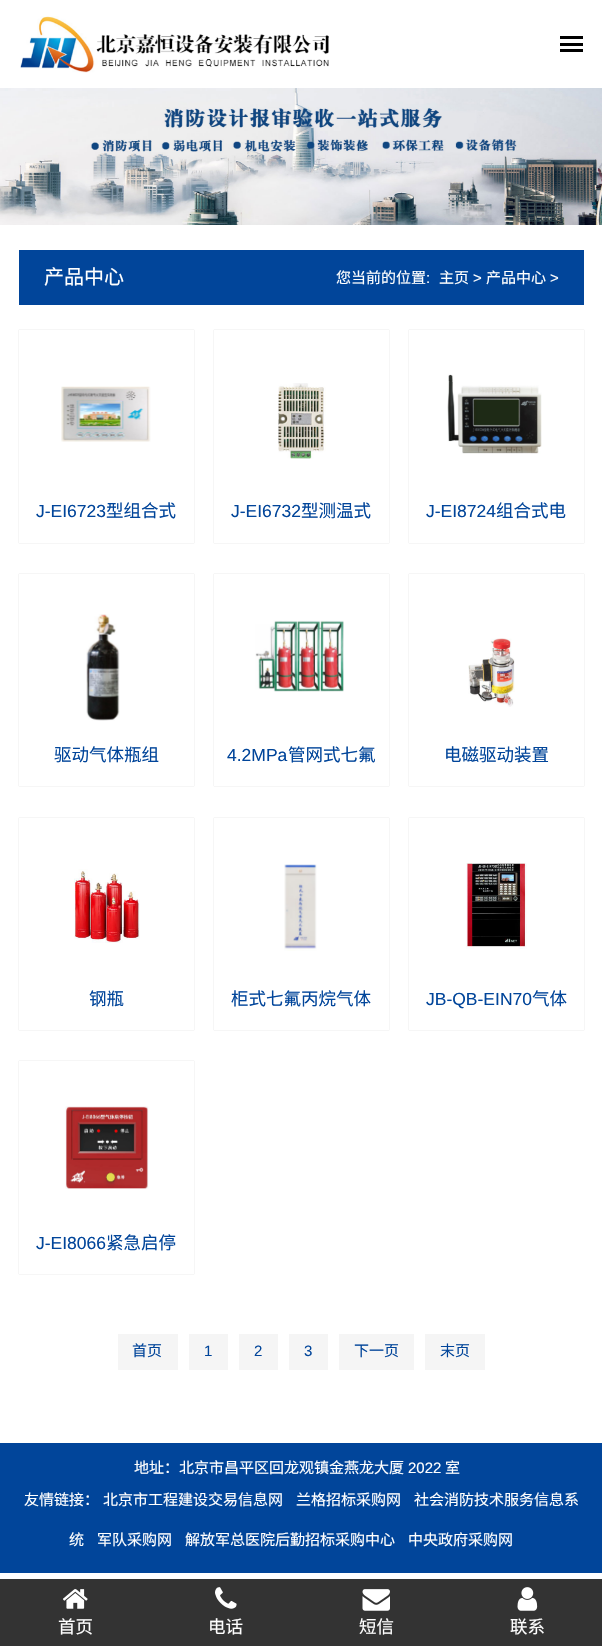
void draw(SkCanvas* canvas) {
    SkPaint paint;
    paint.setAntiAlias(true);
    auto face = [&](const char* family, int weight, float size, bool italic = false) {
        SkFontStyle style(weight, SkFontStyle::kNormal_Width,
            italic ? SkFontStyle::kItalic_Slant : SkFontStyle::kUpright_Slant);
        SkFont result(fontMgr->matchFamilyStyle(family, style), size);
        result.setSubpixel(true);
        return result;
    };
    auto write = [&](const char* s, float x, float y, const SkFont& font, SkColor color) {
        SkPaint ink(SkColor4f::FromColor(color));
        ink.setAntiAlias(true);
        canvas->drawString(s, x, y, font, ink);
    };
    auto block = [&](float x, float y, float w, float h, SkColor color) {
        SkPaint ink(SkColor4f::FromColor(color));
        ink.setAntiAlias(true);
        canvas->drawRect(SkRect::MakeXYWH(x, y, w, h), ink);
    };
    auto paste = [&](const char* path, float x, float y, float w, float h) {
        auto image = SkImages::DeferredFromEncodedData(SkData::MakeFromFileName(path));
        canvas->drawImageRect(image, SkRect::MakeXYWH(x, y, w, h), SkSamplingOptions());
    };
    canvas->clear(SK_ColorWHITE);
    paste("pic1.png", 20, 16, 309, 57);
    block(560, 43, 23, 3, SK_ColorBLACK);
    block(560, 36, 23, 3, SK_ColorBLACK);
    block(560, 49, 23, 3, SK_ColorBLACK);
    paste("pic2.png", 0, 88, 602, 137);
    block(19, 250, 565, 55, SkColorSetRGB(1, 69, 154));
    auto kFont1 = face("Noto Sans CJK SC", 400, 20);
    write("产品中心", 44, 284, kFont1, SK_ColorWHITE);
    auto kFont2 = face("Noto Sans CJK SC", 400, 15);
    write("您当前的位置", 336, 283, kFont2, SK_ColorWHITE);
    auto kFont3 = face("Liberation Sans", 400, 15);
    write(":", 426, 283, kFont3, SK_ColorWHITE);
    write("主页", 439, 283, kFont2, SK_ColorWHITE);
    write(">", 473, 283, kFont3, SK_ColorWHITE);
    write("产品中心", 486, 283, kFont2, SK_ColorWHITE);
    write(">", 550, 283, kFont3, SK_ColorWHITE);
    canvas->save();
    canvas->clipPath(SkPathBuilder(SkPathFillType::kEvenOdd).moveTo(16, 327).lineTo(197, 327).lineTo(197, 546).lineTo(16, 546).close().moveTo(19, 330).lineTo(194, 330).lineTo(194, 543).lineTo(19, 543).close().detach(), true);
    paint.setColor(SkColorSetRGB(204, 204, 204));
    paint.setMaskFilter(SkMaskFilter::MakeBlur(kNormal_SkBlurStyle, 0.5f));
    canvas->drawRect(SkRect::MakeXYWH(19, 330, 175, 213), paint);
    paint.setMaskFilter(nullptr);
    canvas->restore();
    paste("pic3.png", 61, 386, 90, 56);
    auto kFont4 = face("Liberation Sans", 400, 17.5f);
    write("J-EI6723", 36, 517, kFont4, SkColorSetRGB(1, 69, 154));
    auto kFont5 = face("Noto Sans CJK SC", 400, 17.5f);
    write("型组合式", 106, 517, kFont5, SkColorSetRGB(1, 69, 154));
    canvas->save();
    canvas->clipPath(SkPathBuilder(SkPathFillType::kEvenOdd).moveTo(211, 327).lineTo(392, 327).lineTo(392, 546).lineTo(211, 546).close().moveTo(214, 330).lineTo(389, 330).lineTo(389, 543).lineTo(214, 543).close().detach(), true);
    paint.setMaskFilter(SkMaskFilter::MakeBlur(kNormal_SkBlurStyle, 0.5f));
    canvas->drawRect(SkRect::MakeXYWH(214, 330, 175, 213), paint);
    paint.setMaskFilter(nullptr);
    canvas->restore();
    paste("pic4.png", 278, 383, 48, 76);
    write("J-EI6732", 231, 517, kFont4, SkColorSetRGB(1, 69, 154));
    write("型测温式", 301, 517, kFont5, SkColorSetRGB(1, 69, 154));
    canvas->save();
    canvas->clipPath(SkPathBuilder(SkPathFillType::kEvenOdd).moveTo(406, 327).lineTo(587, 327).lineTo(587, 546).lineTo(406, 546).close().moveTo(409, 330).lineTo(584, 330).lineTo(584, 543).lineTo(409, 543).close().detach(), true);
    paint.setMaskFilter(SkMaskFilter::MakeBlur(kNormal_SkBlurStyle, 0.5f));
    canvas->drawRect(SkRect::MakeXYWH(409, 330, 175, 213), paint);
    paint.setMaskFilter(nullptr);
    canvas->restore();
    paste("pic5.png", 447, 374, 95, 80);
    write("J-EI8724", 426, 517, kFont4, SkColorSetRGB(1, 69, 154));
    write("组合式电", 496, 517, kFont5, SkColorSetRGB(1, 69, 154));
    canvas->save();
    canvas->clipPath(SkPathBuilder(SkPathFillType::kEvenOdd).moveTo(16, 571).lineTo(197, 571).lineTo(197, 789).lineTo(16, 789).close().moveTo(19, 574).lineTo(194, 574).lineTo(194, 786).lineTo(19, 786).close().detach(), true);
    paint.setMaskFilter(SkMaskFilter::MakeBlur(kNormal_SkBlurStyle, 0.5f));
    canvas->drawRect(SkRect::MakeXYWH(19, 574, 175, 212), paint);
    paint.setMaskFilter(nullptr);
    canvas->restore();
    paste("pic6.png", 86, 614, 34, 107);
    write("驱动气体瓶组", 54, 761, kFont5, SkColorSetRGB(1, 69, 154));
    canvas->save();
    canvas->clipPath(SkPathBuilder(SkPathFillType::kEvenOdd).moveTo(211, 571).lineTo(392, 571).lineTo(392, 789).lineTo(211, 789).close().moveTo(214, 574).lineTo(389, 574).lineTo(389, 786).lineTo(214, 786).close().detach(), true);
    paint.setMaskFilter(SkMaskFilter::MakeBlur(kNormal_SkBlurStyle, 0.5f));
    canvas->drawRect(SkRect::MakeXYWH(214, 574, 175, 212), paint);
    paint.setMaskFilter(nullptr);
    canvas->restore();
    paste("pic7.png", 255, 620, 89, 72);
    write("4.2MPa", 227, 761, kFont4, SkColorSetRGB(1, 69, 154));
    write("管网式七氟", 288, 761, kFont5, SkColorSetRGB(1, 69, 154));
    canvas->save();
    canvas->clipPath(SkPathBuilder(SkPathFillType::kEvenOdd).moveTo(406, 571).lineTo(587, 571).lineTo(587, 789).lineTo(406, 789).close().moveTo(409, 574).lineTo(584, 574).lineTo(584, 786).lineTo(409, 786).close().detach(), true);
    paint.setMaskFilter(SkMaskFilter::MakeBlur(kNormal_SkBlurStyle, 0.5f));
    canvas->drawRect(SkRect::MakeXYWH(409, 574, 175, 212), paint);
    paint.setMaskFilter(nullptr);
    canvas->restore();
    paste("pic8.png", 468, 638, 47, 69);
    write("电磁驱动装置", 444, 761, kFont5, SkColorSetRGB(1, 69, 154));
    canvas->save();
    canvas->clipPath(SkPathBuilder(SkPathFillType::kEvenOdd).moveTo(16, 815).lineTo(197, 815).lineTo(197, 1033).lineTo(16, 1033).close().moveTo(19, 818).lineTo(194, 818).lineTo(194, 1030).lineTo(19, 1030).close().detach(), true);
    paint.setMaskFilter(SkMaskFilter::MakeBlur(kNormal_SkBlurStyle, 0.5f));
    canvas->drawRect(SkRect::MakeXYWH(19, 818, 175, 212), paint);
    paint.setMaskFilter(nullptr);
    canvas->restore();
    paste("pic9.png", 74, 869, 66, 74);
    write("钢瓶", 89, 1005, kFont5, SkColorSetRGB(1, 69, 154));
    canvas->save();
    canvas->clipPath(SkPathBuilder(SkPathFillType::kEvenOdd).moveTo(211, 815).lineTo(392, 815).lineTo(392, 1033).lineTo(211, 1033).close().moveTo(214, 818).lineTo(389, 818).lineTo(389, 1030).lineTo(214, 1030).close().detach(), true);
    paint.setMaskFilter(SkMaskFilter::MakeBlur(kNormal_SkBlurStyle, 0.5f));
    canvas->drawRect(SkRect::MakeXYWH(214, 818, 175, 212), paint);
    paint.setMaskFilter(nullptr);
    canvas->restore();
    paste("pic10.png", 284, 864, 33, 87);
    write("柜式七氟丙烷气体", 231, 1005, kFont5, SkColorSetRGB(1, 69, 154));
    canvas->save();
    canvas->clipPath(SkPathBuilder(SkPathFillType::kEvenOdd).moveTo(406, 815).lineTo(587, 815).lineTo(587, 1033).lineTo(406, 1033).close().moveTo(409, 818).lineTo(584, 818).lineTo(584, 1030).lineTo(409, 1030).close().detach(), true);
    paint.setMaskFilter(SkMaskFilter::MakeBlur(kNormal_SkBlurStyle, 0.5f));
    canvas->drawRect(SkRect::MakeXYWH(409, 818, 175, 212), paint);
    paint.setMaskFilter(nullptr);
    canvas->restore();
    paste("pic11.png", 466, 863, 61, 86);
    write("JB-QB-EIN70", 426, 1005, kFont4, SkColorSetRGB(1, 69, 154));
    write("气体", 532, 1005, kFont5, SkColorSetRGB(1, 69, 154));
    canvas->save();
    canvas->clipPath(SkPathBuilder(SkPathFillType::kEvenOdd).moveTo(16, 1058).lineTo(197, 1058).lineTo(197, 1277).lineTo(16, 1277).close().moveTo(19, 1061).lineTo(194, 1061).lineTo(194, 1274).lineTo(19, 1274).close().detach(), true);
    paint.setMaskFilter(SkMaskFilter::MakeBlur(kNormal_SkBlurStyle, 0.5f));
    canvas->drawRect(SkRect::MakeXYWH(19, 1061, 175, 213), paint);
    paint.setMaskFilter(nullptr);
    canvas->restore();
    paste("pic12.png", 65, 1106, 84, 83);
    write("J-EI8066", 36, 1249, kFont4, SkColorSetRGB(1, 69, 154));
    write("紧急启停", 106, 1249, kFont5, SkColorSetRGB(1, 69, 154));
    block(118, 1334, 60, 36, SkColorSetRGB(245, 245, 245));
    write("首页", 132, 1356, kFont2, SkColorSetRGB(1, 69, 154));
    block(189, 1334, 39, 36, SkColorSetRGB(245, 245, 245));
    write("1", 204, 1356, kFont3, SkColorSetRGB(1, 69, 154));
    block(239, 1334, 39, 36, SkColorSetRGB(245, 245, 245));
    write("2", 254, 1356, kFont3, SkColorSetRGB(1, 69, 154));
    block(289, 1334, 39, 36, SkColorSetRGB(245, 245, 245));
    write("3", 304, 1356, kFont3, SkColorSetRGB(1, 69, 154));
    block(339, 1334, 75, 36, SkColorSetRGB(245, 245, 245));
    write("下一页", 354, 1356, kFont2, SkColorSetRGB(1, 69, 154));
    block(425, 1334, 60, 36, SkColorSetRGB(245, 245, 245));
    write("末页", 440, 1356, kFont2, SkColorSetRGB(1, 69, 154));
    block(0, 1443, 602, 130, SkColorSetRGB(1, 69, 154));
    write("地址：北京市昌平区回龙观镇金燕龙大厦", 134, 1473, kFont2, SK_ColorWHITE);
    write("2022", 408, 1473, kFont3, SK_ColorWHITE);
    write("室", 445, 1473, kFont2, SK_ColorWHITE);
    write("友情链接：", 24, 1505, kFont2, SK_ColorWHITE);
    write("北京市工程建设交易信息网", 103, 1505, kFont2, SK_ColorWHITE);
    write("兰格招标采购网", 296, 1505, kFont2, SK_ColorWHITE);
    write("社会消防技术服务信息系", 414, 1505, kFont2, SK_ColorWHITE);
    write("统", 69, 1545, kFont2, SK_ColorWHITE);
    write("军队采购网", 97, 1545, kFont2, SK_ColorWHITE);
    write("解放军总医院后勤招标采购中心", 185, 1545, kFont2, SK_ColorWHITE);
    write("中央政府采购网", 408, 1545, kFont2, SK_ColorWHITE);
    block(0, 1579, 602, 67, SkColorSetRGB(51, 51, 51));
    paste("pic13.png", 63, 1589, 25, 20);
    write("首页", 58, 1633, kFont5, SK_ColorWHITE);
    paste("pic14.png", 215, 1587, 22, 22);
    write("电话", 208, 1633, kFont5, SK_ColorWHITE);
    paste("pic15.png", 362, 1589, 28, 22);
    write("短信", 359, 1633, kFont5, SK_ColorWHITE);
    paste("pic16.png", 517, 1587, 21, 24);
    write("联系", 510, 1633, kFont5, SK_ColorWHITE);
}
